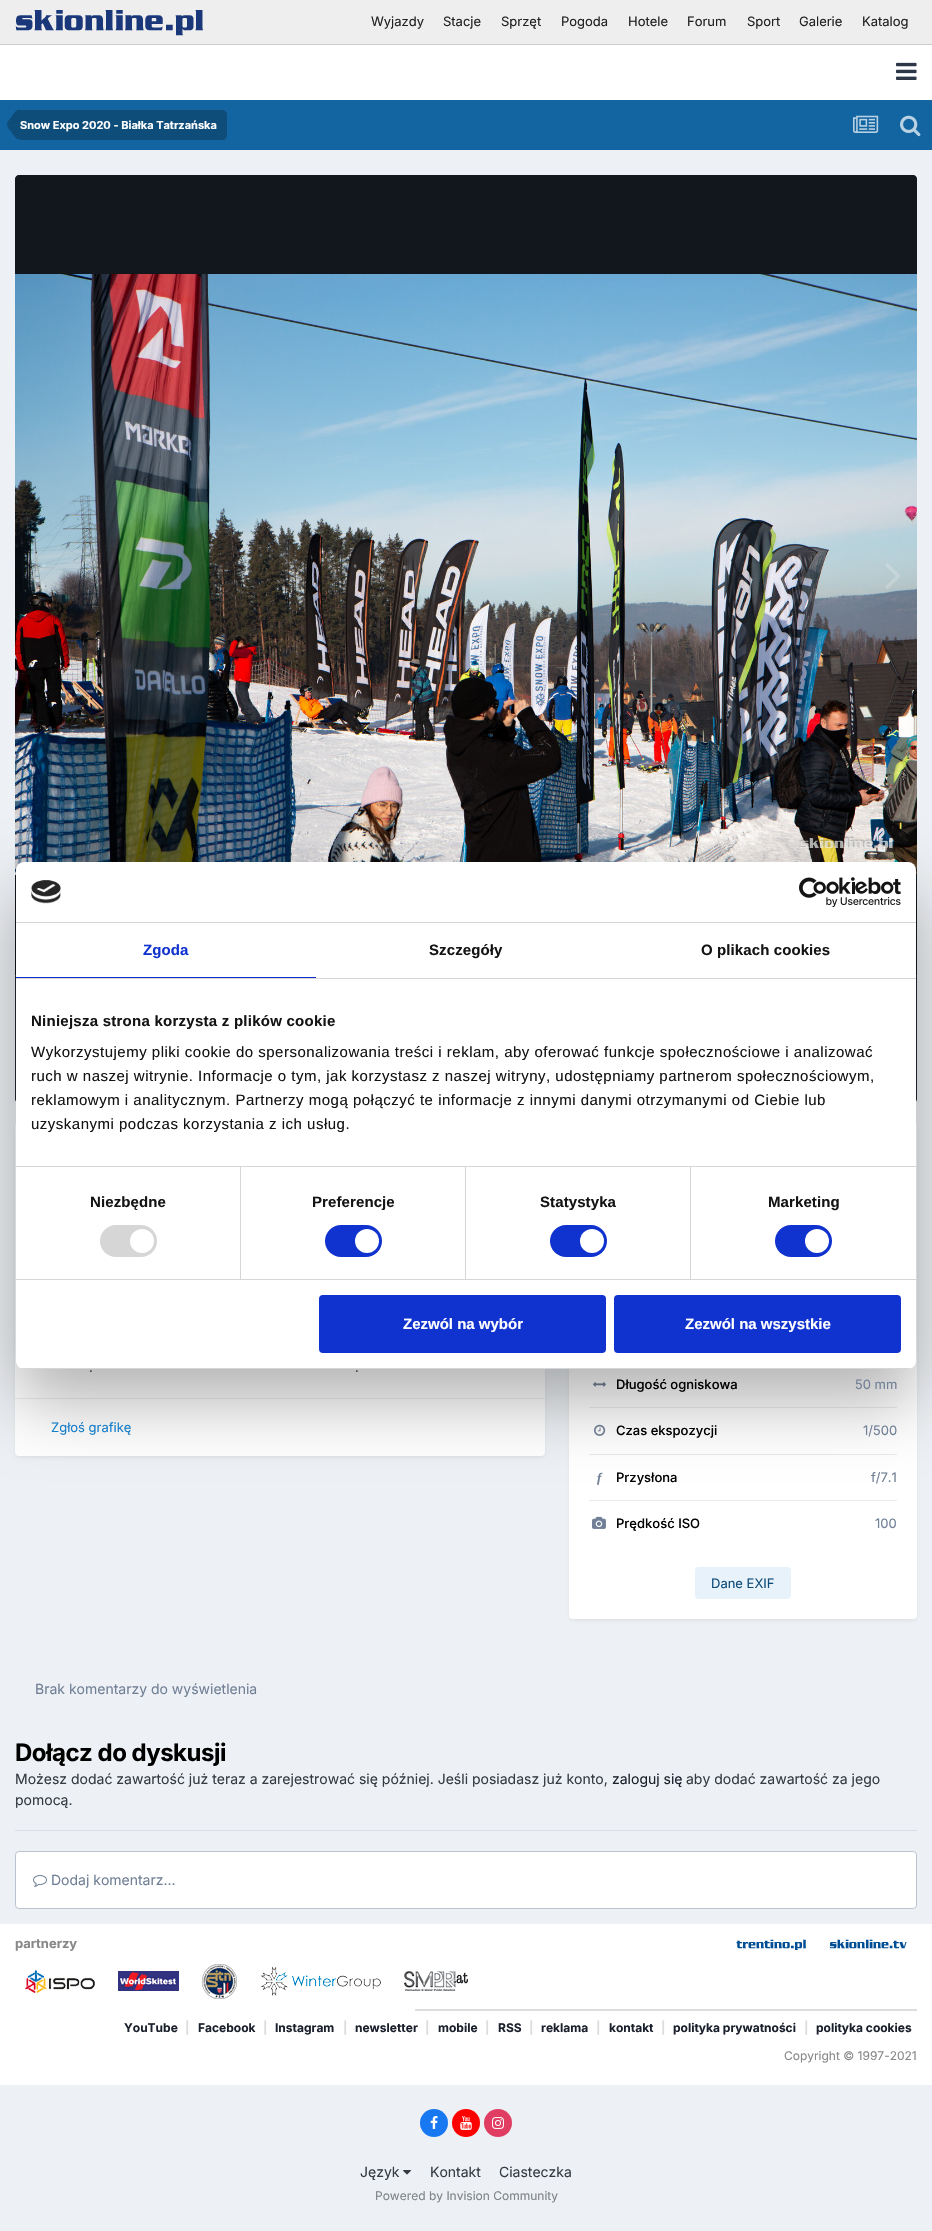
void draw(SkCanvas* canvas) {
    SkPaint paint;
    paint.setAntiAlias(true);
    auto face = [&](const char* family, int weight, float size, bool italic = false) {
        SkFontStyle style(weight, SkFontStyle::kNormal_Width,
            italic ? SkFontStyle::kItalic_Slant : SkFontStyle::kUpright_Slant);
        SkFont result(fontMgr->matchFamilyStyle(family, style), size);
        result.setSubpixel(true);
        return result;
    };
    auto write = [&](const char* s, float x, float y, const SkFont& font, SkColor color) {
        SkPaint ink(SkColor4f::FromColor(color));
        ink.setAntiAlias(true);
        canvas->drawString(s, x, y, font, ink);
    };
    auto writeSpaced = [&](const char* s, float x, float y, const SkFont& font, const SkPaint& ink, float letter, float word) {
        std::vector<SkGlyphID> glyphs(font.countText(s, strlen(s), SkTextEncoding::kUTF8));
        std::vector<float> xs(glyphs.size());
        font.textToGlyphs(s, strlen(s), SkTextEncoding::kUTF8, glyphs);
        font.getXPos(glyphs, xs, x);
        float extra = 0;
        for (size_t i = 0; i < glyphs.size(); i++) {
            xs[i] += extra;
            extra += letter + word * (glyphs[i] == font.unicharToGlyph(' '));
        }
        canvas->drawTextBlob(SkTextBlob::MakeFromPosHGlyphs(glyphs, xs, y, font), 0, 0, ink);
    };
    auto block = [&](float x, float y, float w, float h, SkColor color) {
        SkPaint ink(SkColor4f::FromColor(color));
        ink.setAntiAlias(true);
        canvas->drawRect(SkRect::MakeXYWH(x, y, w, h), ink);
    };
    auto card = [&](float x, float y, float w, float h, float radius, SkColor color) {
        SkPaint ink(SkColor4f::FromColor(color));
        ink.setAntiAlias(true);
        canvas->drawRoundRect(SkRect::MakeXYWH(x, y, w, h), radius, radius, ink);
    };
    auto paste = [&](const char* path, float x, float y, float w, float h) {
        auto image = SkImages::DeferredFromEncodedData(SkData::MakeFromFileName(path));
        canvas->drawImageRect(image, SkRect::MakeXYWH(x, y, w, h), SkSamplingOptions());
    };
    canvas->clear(SkColorSetRGB(237, 240, 244));
    block(0, 0, 932, 44, SkColorSetRGB(238, 238, 238));
    block(0, 44, 932, 1, SkColorSetRGB(204, 204, 204));
    paste("pic1.png", 15, 10, 188, 26);
    auto kFont1 = face("Inter", 400, 13);
    write("Wyjazdy", 371, 26, kFont1, SkColorSetRGB(34, 34, 34));
    write("Stacje", 443, 26, kFont1, SkColorSetRGB(34, 34, 34));
    write("Sprzęt", 501, 26, kFont1, SkColorSetRGB(34, 34, 34));
    write("Pogoda", 561, 26, kFont1, SkColorSetRGB(34, 34, 34));
    write("Hotele", 628, 26, kFont1, SkColorSetRGB(34, 34, 34));
    write("Forum", 687, 26, kFont1, SkColorSetRGB(34, 34, 34));
    write("Sport", 747, 26, kFont1, SkColorSetRGB(34, 34, 34));
    write("Galerie", 799, 26, kFont1, SkColorSetRGB(34, 34, 34));
    write("Katalog", 862, 26, kFont1, SkColorSetRGB(34, 34, 34));
    block(0, 45, 932, 55, SK_ColorWHITE);
    paste("pic2.png", 896, 62, 21, 18);
    block(0, 100, 932, 50, SkColorSetRGB(18, 101, 161));
    paint.setColor(SkColorSetRGB(14, 76, 121));
    canvas->drawPath(SkPathBuilder().moveTo(20, 110).lineTo(222, 110).cubicTo(225, 110, 227, 112, 227, 115).lineTo(227, 135).cubicTo(227, 138, 225, 140, 222, 140).lineTo(20, 140).close().detach(), paint);
    canvas->drawPath(SkPathBuilder().moveTo(20, 124.5f).lineTo(20, 139.5f).cubicTo(15.5f, 139.5f, 13.5f, 135, 11, 131.5f).cubicTo(9.5f, 129.5f, 7, 127.5f, 7, 124.5f).close().detach(), paint);
    paint.setColor(SkColorSetARGB(64, 0, 0, 0));
    canvas->drawPath(SkPathBuilder().moveTo(20, 124.5f).lineTo(7, 124.5f).cubicTo(7, 121.5f, 9.5f, 119.5f, 11, 117.5f).cubicTo(13.5f, 114, 15.5f, 109.5f, 20, 109.5f).close().detach(), paint);
    auto kFont2 = face("Inter", 700, 11);
    write("Snow Expo 2020 - Białka Tatrzańska", 20, 129, kFont2, SK_ColorWHITE);
    paste("pic3.png", 853, 115, 26, 18);
    paste("pic4.png", 900, 115, 21, 22);
    paint.setColor(SkColorSetRGB(45, 55, 72));
    canvas->drawPath(SkPathBuilder().moveTo(19, 175).lineTo(913, 175).cubicTo(915, 175, 917, 177, 917, 179).lineTo(917, 975).lineTo(15, 975).lineTo(15, 179).cubicTo(15, 177, 17, 175, 19, 175).close().detach(), paint);
    paint.setColor(SkColorSetARGB(153, 0, 0, 0));
    canvas->drawPath(SkPathBuilder().moveTo(19, 175).lineTo(913, 175).cubicTo(915, 175, 917, 177, 917, 179).lineTo(917, 975).lineTo(15, 975).lineTo(15, 179).cubicTo(15, 177, 17, 175, 19, 175).close().detach(), paint);
    paste("pic7.png", 15, 274, 902, 601);
    paint.setColor(SkColorSetRGB(45, 55, 72));
    canvas->drawPath(SkPathBuilder().moveTo(15, 975).lineTo(917, 975).lineTo(917, 1099).cubicTo(917, 1101, 915, 1103, 913, 1103).lineTo(19, 1103).cubicTo(17, 1103, 15, 1101, 15, 1099).close().detach(), paint);
    paint.setColor(SkColorSetARGB(77, 0, 0, 0));
    canvas->drawPath(SkPathBuilder().moveTo(15, 975).lineTo(917, 975).lineTo(917, 1099).cubicTo(917, 1101, 915, 1103, 913, 1103).lineTo(19, 1103).cubicTo(17, 1103, 15, 1101, 15, 1099).close().detach(), paint);
    block(15, 975, 902, 1, SkColorSetRGB(54, 60, 71));
    paint.setColor(SkColorSetARGB(26, 45, 55, 72));
    paint.setMaskFilter(SkMaskFilter::MakeBlur(kNormal_SkBlurStyle, 2));
    canvas->drawRoundRect(SkRect::MakeXYWH(16, 1126, 528, 331), 3, 3, paint);
    paint.setMaskFilter(nullptr);
    card(15, 1123, 530, 333, 4, SK_ColorWHITE);
    block(15, 1398, 530, 1, SkColorSetRGB(235, 236, 236));
    paint.setMaskFilter(SkMaskFilter::MakeBlur(kNormal_SkBlurStyle, 2));
    canvas->drawRoundRect(SkRect::MakeXYWH(570, 1126, 346, 494), 3, 3, paint);
    paint.setMaskFilter(nullptr);
    card(569, 1123, 348, 496, 4, SK_ColorWHITE);
    block(589, 1407, 308, 1, SkColorSetRGB(234, 235, 237));
    paste("pic10.png", 593, 1382, 13, 5);
    block(589, 1454, 308, 1, SkColorSetRGB(234, 235, 237));
    paste("pic11.png", 594, 1424, 12, 12);
    block(589, 1500, 308, 1, SkColorSetRGB(234, 235, 237));
    paint.setColor(SkColorSetARGB(77, 0, 0, 0));
    paint.setMaskFilter(SkMaskFilter::MakeBlur(kNormal_SkBlurStyle, 34));
    canvas->drawRoundRect(SkRect::MakeXYWH(16, 894, 900, 507), 8, 8, paint);
    paint.setMaskFilter(nullptr);
    card(16, 862, 900, 507, 8, SK_ColorWHITE);
    block(16, 922, 900, 1, SkColorSetRGB(214, 214, 214));
    paste("pic5.png", 31, 880, 30, 24);
    paste("pic6.png", 799, 877, 102, 30);
    block(16, 978, 900, 1, SkColorSetRGB(214, 214, 214));
    block(16, 977, 300, 1, SkColorSetRGB(16, 50, 207));
    auto kFont3 = face("Liberation Sans", 700, 15);
    paint.setColor(SkColorSetRGB(16, 50, 207));
    writeSpaced("Zgoda", 143, 955, kFont3, paint, 0.1f, 0);
    paint.setColor(SkColorSetRGB(20, 20, 20));
    writeSpaced("Szczegóły", 429, 955, kFont3, paint, 0.1f, 0);
    writeSpaced("O plikach cookies", 701, 955, kFont3, paint, 0.1f, 0);
    block(16, 1166, 900, 1, SkColorSetRGB(214, 214, 214));
    writeSpaced("Niniejsza strona korzysta z plików cookie", 31, 1026, kFont3, paint, 0.25f, 0);
    auto kFont4 = face("Liberation Sans", 400, 15);
    writeSpaced("Wykorzystujemy pliki cookie do spersonalizowania treści i reklam, aby oferować funkcje społecznościowe i analizować", 31, 1057, kFont4, paint, 0.5f, 0);
    writeSpaced("ruch w naszej witrynie. Informacje o tym, jak korzystasz z naszej witryny, udostępniamy partnerom społecznościowym,", 31, 1081, kFont4, paint, 0.5f, 0);
    writeSpaced("reklamowym i analitycznym. Partnerzy mogą połączyć te informacje z innymi danymi otrzymanymi od Ciebie lub", 31, 1105, kFont4, paint, 0.5f, 0);
    writeSpaced("uzyskanymi podczas korzystania z ich usług.", 31, 1129, kFont4, paint, 0.5f, 0);
    block(16, 1279, 900, 1, SkColorSetRGB(214, 214, 214));
    block(240, 1167, 1, 112, SkColorSetRGB(214, 214, 214));
    writeSpaced("Niezbędne", 90, 1207, kFont3, paint, 0.1f, 0);
    card(100, 1225, 57, 32, 16, SkColorSetRGB(214, 214, 214));
    paint.setColor(SK_ColorWHITE);
    canvas->drawCircle(142, 1241, 12, paint);
    block(465, 1167, 1, 112, SkColorSetRGB(214, 214, 214));
    paint.setColor(SkColorSetRGB(20, 20, 20));
    writeSpaced("Preferencje", 312, 1207, kFont3, paint, 0.1f, 0);
    card(325, 1225, 57, 32, 16, SkColorSetRGB(16, 50, 207));
    paint.setColor(SK_ColorWHITE);
    canvas->drawCircle(367, 1241, 12, paint);
    block(690, 1167, 1, 112, SkColorSetRGB(214, 214, 214));
    paint.setColor(SkColorSetRGB(20, 20, 20));
    writeSpaced("Statystyka", 540, 1207, kFont3, paint, 0.1f, 0);
    card(550, 1225, 57, 32, 16, SkColorSetRGB(16, 50, 207));
    paint.setColor(SK_ColorWHITE);
    canvas->drawCircle(592, 1241, 12, paint);
    paint.setColor(SkColorSetRGB(20, 20, 20));
    writeSpaced("Marketing", 768, 1207, kFont3, paint, 0.1f, 0);
    card(775, 1225, 57, 32, 16, SkColorSetRGB(16, 50, 207));
    paint.setColor(SK_ColorWHITE);
    canvas->drawCircle(817, 1241, 12, paint);
    canvas->save();
    canvas->clipPath(SkPathBuilder().moveTo(24, 862).lineTo(908, 862).cubicTo(912.5f, 862, 916, 865.5f, 916, 870).lineTo(916, 1361).cubicTo(916, 1365.5f, 912.5f, 1369, 908, 1369).lineTo(24, 1369).cubicTo(19.5f, 1369, 16, 1365.5f, 16, 1361).lineTo(16, 870).cubicTo(16, 865.5f, 19.5f, 862, 24, 862).close().detach(), true);
    block(16, 1368, 900, 1, SkColorSetRGB(214, 214, 214));
    canvas->restore();
    paint.setColor(SkColorSetRGB(16, 50, 207));
    canvas->drawRoundRect(SkRect::MakeXYWH(320, 1296, 285, 56), 3, 3, paint);
    paint.setStyle(SkPaint::kStroke_Style);
    paint.setStrokeWidth(2);
    canvas->drawRoundRect(SkRect::MakeXYWH(320, 1296, 285, 56), 3, 3, paint);
    write("Zezwól na wybór", 403, 1329, kFont3, SK_ColorWHITE);
    paint.setStyle(SkPaint::kFill_Style);
    canvas->drawRoundRect(SkRect::MakeXYWH(615, 1296, 285, 56), 3, 3, paint);
    paint.setStyle(SkPaint::kStroke_Style);
    canvas->drawRoundRect(SkRect::MakeXYWH(615, 1296, 285, 56), 3, 3, paint);
    write("Zezwól na wszystkie", 685, 1329, kFont3, SK_ColorWHITE);
    paste("pic8.png", 31, 563, 15, 26);
    paste("pic9.png", 885, 563, 15, 26);
    write(".", 89, 1372, kFont1, SkColorSetRGB(53, 60, 65));
    write(".", 355, 1372, kFont1, SkColorSetRGB(53, 60, 65));
    write("Zgłoś grafikę", 51, 1432, kFont1, SkColorSetRGB(23, 126, 201));
    auto kFont5 = face("Inter", 500, 13);
    write("Długość ogniskowa", 616, 1389, kFont5, SK_ColorBLACK);
    write("50 mm", 855, 1389, kFont1, SkColorSetRGB(113, 128, 150));
    write("Czas ekspozycji", 616, 1435, kFont5, SK_ColorBLACK);
    write("1/500", 863, 1435, kFont1, SkColorSetRGB(113, 128, 150));
    auto kFont6 = face("Liberation Serif", 700, 13, true);
    write("f", 597, 1482, kFont6, SkColorSetRGB(113, 128, 150));
    write("Przysłona", 616, 1482, kFont5, SK_ColorBLACK);
    write("f/7.1", 871, 1482, kFont1, SkColorSetRGB(113, 128, 150));
    paste("pic12.png", 592, 1516, 14, 13);
    write("Prędkość ISO", 616, 1528, kFont5, SK_ColorBLACK);
    write("100", 875, 1528, kFont1, SkColorSetRGB(113, 128, 150));
    card(695, 1567, 96, 32, 4, SkColorSetRGB(232, 242, 250));
    write("Dane EXIF", 711, 1588, kFont1, SkColorSetRGB(14, 76, 121));
    auto kFont7 = face("Inter", 400, 14);
    write("Brak komentarzy do wyświetlenia", 35, 1694, kFont7, SkColorSetRGB(113, 128, 150));
    block(15, 1830, 902, 1, SkColorSetRGB(218, 223, 230));
    auto kFont8 = face("Inter", 700, 24);
    paint.setStyle(SkPaint::kFill_Style);
    paint.setColor(SK_ColorBLACK);
    writeSpaced("Dołącz do dyskusji", 15, 1761, kFont8, paint, -0.5f, 0);
    write("Możesz dodać zawartość już teraz a zarejestrować się później. Jeśli posiadasz już konto,", 15, 1784, kFont7, SkColorSetRGB(53, 60, 65));
    write("zaloguj się", 612, 1784, kFont7, SkColorSetRGB(26, 32, 44));
    write("aby dodać zawartość za jego", 686, 1784, kFont7, SkColorSetRGB(53, 60, 65));
    write("pomocą.", 15, 1805, kFont7, SkColorSetRGB(53, 60, 65));
    paint.setColor(SK_ColorWHITE);
    canvas->drawRoundRect(SkRect::MakeXYWH(15.5f, 1851.5f, 901, 57), 3.5f, 3.5f, paint);
    paint.setStyle(SkPaint::kStroke_Style);
    paint.setStrokeWidth(1);
    paint.setColor(SkColorSetRGB(187, 195, 206));
    canvas->drawRoundRect(SkRect::MakeXYWH(15.5f, 1851.5f, 901, 57), 3.5f, 3.5f, paint);
    paste("pic13.png", 33, 1875, 14, 12);
    write("Dodaj komentarz...", 51, 1885, kFont7, SkColorSetRGB(113, 128, 150));
    block(0, 1924, 932, 161, SK_ColorWHITE);
    auto kFont9 = face("Inter", 700, 13);
    write("partnerzy", 15, 1948, kFont9, SkColorSetRGB(136, 136, 136));
    paste("pic14.png", 736, 1939, 70, 11);
    paste("pic15.png", 829, 1939, 78, 10);
    paste("pic16.png", 25, 1970, 70, 23);
    paste("pic17.png", 118, 1971, 61, 20);
    paste("pic18.png", 202, 1964, 35, 35);
    paste("pic19.png", 260, 1966, 121, 30);
    paste("pic20.png", 404, 1971, 64, 20);
    block(415, 2009, 502, 2, SkColorSetRGB(221, 221, 221));
    auto kFont10 = face("Inter", 700, 12);
    write("YouTube", 124, 2032, kFont10, SkColorSetRGB(26, 32, 44));
    write("|", 185, 2032, kFont10, SkColorSetRGB(221, 221, 221));
    write("Facebook", 198, 2032, kFont10, SkColorSetRGB(26, 32, 44));
    write("|", 263, 2032, kFont10, SkColorSetRGB(221, 221, 221));
    write("Instagram", 275, 2032, kFont10, SkColorSetRGB(26, 32, 44));
    write("|", 343, 2032, kFont10, SkColorSetRGB(221, 221, 221));
    write("newsletter", 355, 2032, kFont10, SkColorSetRGB(26, 32, 44));
    write("|", 425, 2032, kFont10, SkColorSetRGB(221, 221, 221));
    write("mobile", 438, 2032, kFont10, SkColorSetRGB(26, 32, 44));
    write("|", 485, 2032, kFont10, SkColorSetRGB(221, 221, 221));
    write("RSS", 498, 2032, kFont10, SkColorSetRGB(26, 32, 44));
    write("|", 529, 2032, kFont10, SkColorSetRGB(221, 221, 221));
    write("reklama", 541, 2032, kFont10, SkColorSetRGB(26, 32, 44));
    write("|", 596, 2032, kFont10, SkColorSetRGB(221, 221, 221));
    write("kontakt", 609, 2032, kFont10, SkColorSetRGB(26, 32, 44));
    write("|", 661, 2032, kFont10, SkColorSetRGB(221, 221, 221));
    write("polityka prywatności", 673, 2032, kFont10, SkColorSetRGB(26, 32, 44));
    write("|", 804, 2032, kFont10, SkColorSetRGB(221, 221, 221));
    write("polityka cookies", 816, 2032, kFont10, SkColorSetRGB(26, 32, 44));
    auto kFont11 = face("Inter", 400, 12);
    write("Copyright © 1997-2021", 784, 2060, kFont11, SkColorSetRGB(136, 136, 136));
    paint.setStyle(SkPaint::kFill_Style);
    paint.setColor(SkColorSetRGB(23, 120, 242));
    canvas->drawCircle(434, 2123, 14, paint);
    paste("pic21.png", 430, 2116, 8, 13);
    paint.setColor(SkColorSetRGB(255, 0, 0));
    canvas->drawCircle(466, 2123, 14, paint);
    paste("pic22.png", 460, 2116, 12, 14);
    paint.setColor(SkColorSetRGB(225, 61, 98));
    canvas->drawCircle(498, 2123, 14, paint);
    paste("pic23.png", 492, 2117, 12, 12);
    write("Język", 360, 2177, kFont7, SkColorSetRGB(53, 60, 65));
    paste("pic24.png", 403, 2170, 8, 5);
    write("Kontakt", 430, 2177, kFont7, SkColorSetRGB(53, 60, 65));
    write("Ciasteczka", 499, 2177, kFont7, SkColorSetRGB(53, 60, 65));
    write("Powered by Invision Community", 375, 2200, kFont11, SkColorSetRGB(127, 132, 137));
}
